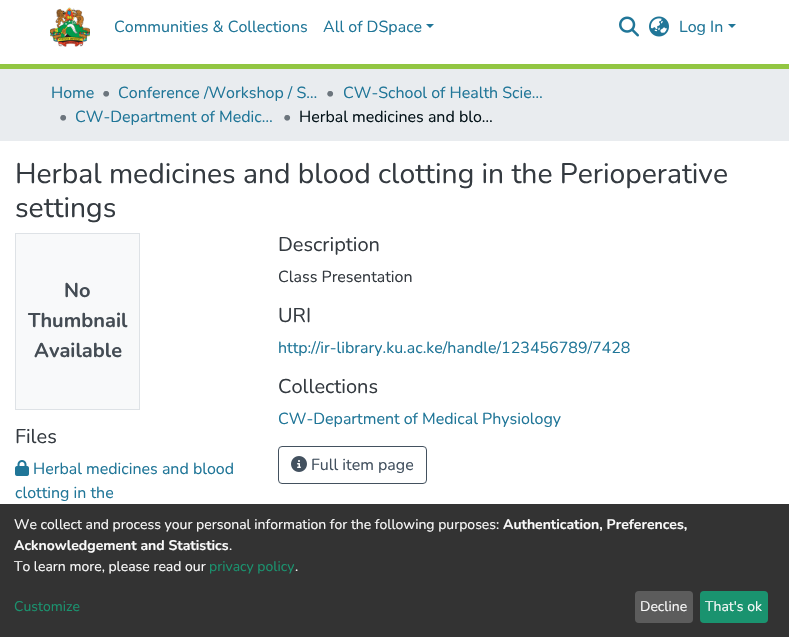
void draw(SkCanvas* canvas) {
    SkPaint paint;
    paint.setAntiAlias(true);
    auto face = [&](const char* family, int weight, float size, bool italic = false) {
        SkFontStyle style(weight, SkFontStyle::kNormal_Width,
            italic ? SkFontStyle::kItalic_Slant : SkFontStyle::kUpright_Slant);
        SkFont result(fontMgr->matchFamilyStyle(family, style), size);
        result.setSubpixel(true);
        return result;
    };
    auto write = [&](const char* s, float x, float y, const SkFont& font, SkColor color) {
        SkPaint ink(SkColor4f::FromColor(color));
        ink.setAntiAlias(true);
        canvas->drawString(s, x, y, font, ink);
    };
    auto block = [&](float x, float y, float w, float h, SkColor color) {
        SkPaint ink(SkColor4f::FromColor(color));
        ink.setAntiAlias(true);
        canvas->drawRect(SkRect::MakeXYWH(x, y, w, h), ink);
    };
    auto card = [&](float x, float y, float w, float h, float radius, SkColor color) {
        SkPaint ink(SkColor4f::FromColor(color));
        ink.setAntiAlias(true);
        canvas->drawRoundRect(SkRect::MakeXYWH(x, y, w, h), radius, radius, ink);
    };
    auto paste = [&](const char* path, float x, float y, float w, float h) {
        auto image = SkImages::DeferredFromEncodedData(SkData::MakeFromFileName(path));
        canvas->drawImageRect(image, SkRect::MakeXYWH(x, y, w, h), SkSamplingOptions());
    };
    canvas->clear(SK_ColorWHITE);
    block(0, 64, 789, 5, SkColorSetRGB(146, 198, 66));
    paste("pic1.png", 50, 7, 40, 40);
    auto kFont1 = face("Nunito", 400, 16);
    write("Communities & Collections", 114, 32, kFont1, SkColorSetRGB(32, 118, 152));
    write("All of DSpace", 323, 32, kFont1, SkColorSetRGB(32, 118, 152));
    paint.setColor(SkColorSetRGB(32, 118, 152));
    canvas->drawPath(SkPathBuilder().moveTo(426, 24).lineTo(434, 24).lineTo(430, 28).close().detach(), paint);
    paste("pic2.png", 619, 16, 20, 21);
    paste("pic3.png", 649, 16, 20, 21);
    write("Log In", 679, 32, kFont1, SkColorSetRGB(32, 118, 152));
    canvas->drawPath(SkPathBuilder().moveTo(728, 24).lineTo(736, 24).lineTo(732, 28).close().detach(), paint);
    block(0, 69, 789, 72, SkColorSetRGB(233, 236, 239));
    write("Home", 51, 98, kFont1, SkColorSetRGB(32, 118, 152));
    write("•", 102, 98, kFont1, SkColorSetRGB(108, 117, 125));
    write("Conference /Workshop / S…", 118, 98, kFont1, SkColorSetRGB(32, 118, 152));
    write("•", 326, 98, kFont1, SkColorSetRGB(108, 117, 125));
    write("CW-School of Health Scie…", 343, 98, kFont1, SkColorSetRGB(32, 118, 152));
    write("•", 59, 122, kFont1, SkColorSetRGB(108, 117, 125));
    write("CW-Department of Medic…", 75, 122, kFont1, SkColorSetRGB(32, 118, 152));
    write("•", 283, 122, kFont1, SkColorSetRGB(108, 117, 125));
    write("Herbal medicines and blo…", 299, 122, kFont1, SkColorSetRGB(5, 20, 26));
    auto kFont2 = face("Nunito", 400, 28.3f);
    write("Herbal medicines and blood clotting in the Perioperative", 15, 183, kFont2, SkColorSetRGB(52, 58, 64));
    write("settings", 15, 217, kFont2, SkColorSetRGB(52, 58, 64));
    paint.setColor(SkColorSetRGB(248, 249, 250));
    canvas->drawRect(SkRect::MakeXYWH(15.5f, 233.5f, 124, 176), paint);
    paint.setStyle(SkPaint::kStroke_Style);
    paint.setStrokeWidth(1);
    paint.setColor(SkColorSetRGB(222, 226, 230));
    canvas->drawRect(SkRect::MakeXYWH(15.5f, 233.5f, 124, 176), paint);
    auto kFont3 = face("Nunito", 700, 20);
    write("No", 64, 297, kFont3, SkColorSetRGB(68, 76, 84));
    write("Thumbnail", 28, 327, kFont3, SkColorSetRGB(68, 76, 84));
    write("Available", 34, 357, kFont3, SkColorSetRGB(68, 76, 84));
    auto kFont4 = face("Nunito", 400, 20);
    write("Files", 15, 443, kFont4, SkColorSetRGB(52, 58, 64));
    paste("pic4.png", 15, 460, 14, 16);
    write("Herbal medicines and blood", 33, 474, kFont1, SkColorSetRGB(32, 118, 152));
    write("clotting in the", 15, 498, kFont1, SkColorSetRGB(32, 118, 152));
    write("Description", 278, 251, kFont4, SkColorSetRGB(52, 58, 64));
    write("Class Presentation", 278, 282, kFont1, SkColorSetRGB(52, 58, 64));
    write("URI", 278, 322, kFont4, SkColorSetRGB(52, 58, 64));
    write("http://ir-library.ku.ac.ke/handle/123456789/7428", 278, 353, kFont1, SkColorSetRGB(32, 118, 152));
    write("Collections", 278, 393, kFont4, SkColorSetRGB(52, 58, 64));
    write("CW-Department of Medical Physiology", 278, 424, kFont1, SkColorSetRGB(32, 118, 152));
    paint.setColor(SkColorSetRGB(67, 81, 95));
    canvas->drawRoundRect(SkRect::MakeXYWH(278.5f, 446.5f, 148, 37), 3.5f, 3.5f, paint);
    paste("pic5.png", 291, 456, 16, 16);
    write("Full item page", 311, 470, kFont1, SkColorSetRGB(67, 81, 95));
    block(0, 504, 789, 133, SkColorSetRGB(51, 51, 51));
    auto kFont5 = face("Nunito", 400, 14);
    write("We collect and process your personal information for the following purposes:", 14, 529, kFont5, SkColorSetRGB(250, 250, 250));
    auto kFont6 = face("Nunito", 700, 14);
    write("Authentication, Preferences,", 503, 529, kFont6, SkColorSetRGB(250, 250, 250));
    write("Acknowledgement and Statistics", 14, 550, kFont6, SkColorSetRGB(250, 250, 250));
    write(".", 229, 550, kFont5, SkColorSetRGB(250, 250, 250));
    write("To learn more, please read our", 14, 571, kFont5, SkColorSetRGB(250, 250, 250));
    write("privacy policy", 209, 571, kFont5, SkColorSetRGB(26, 147, 111));
    write(".", 295, 571, kFont5, SkColorSetRGB(250, 250, 250));
    write("Customize", 14, 611, kFont5, SkColorSetRGB(26, 147, 111));
    card(635, 591, 58, 32, 4, SkColorSetRGB(92, 92, 92));
    write("Decline", 640, 611, kFont5, SkColorSetRGB(250, 250, 250));
    card(700, 591, 68, 32, 4, SkColorSetRGB(26, 147, 111));
    write("That's ok", 705, 611, kFont5, SkColorSetRGB(250, 250, 250));
}
